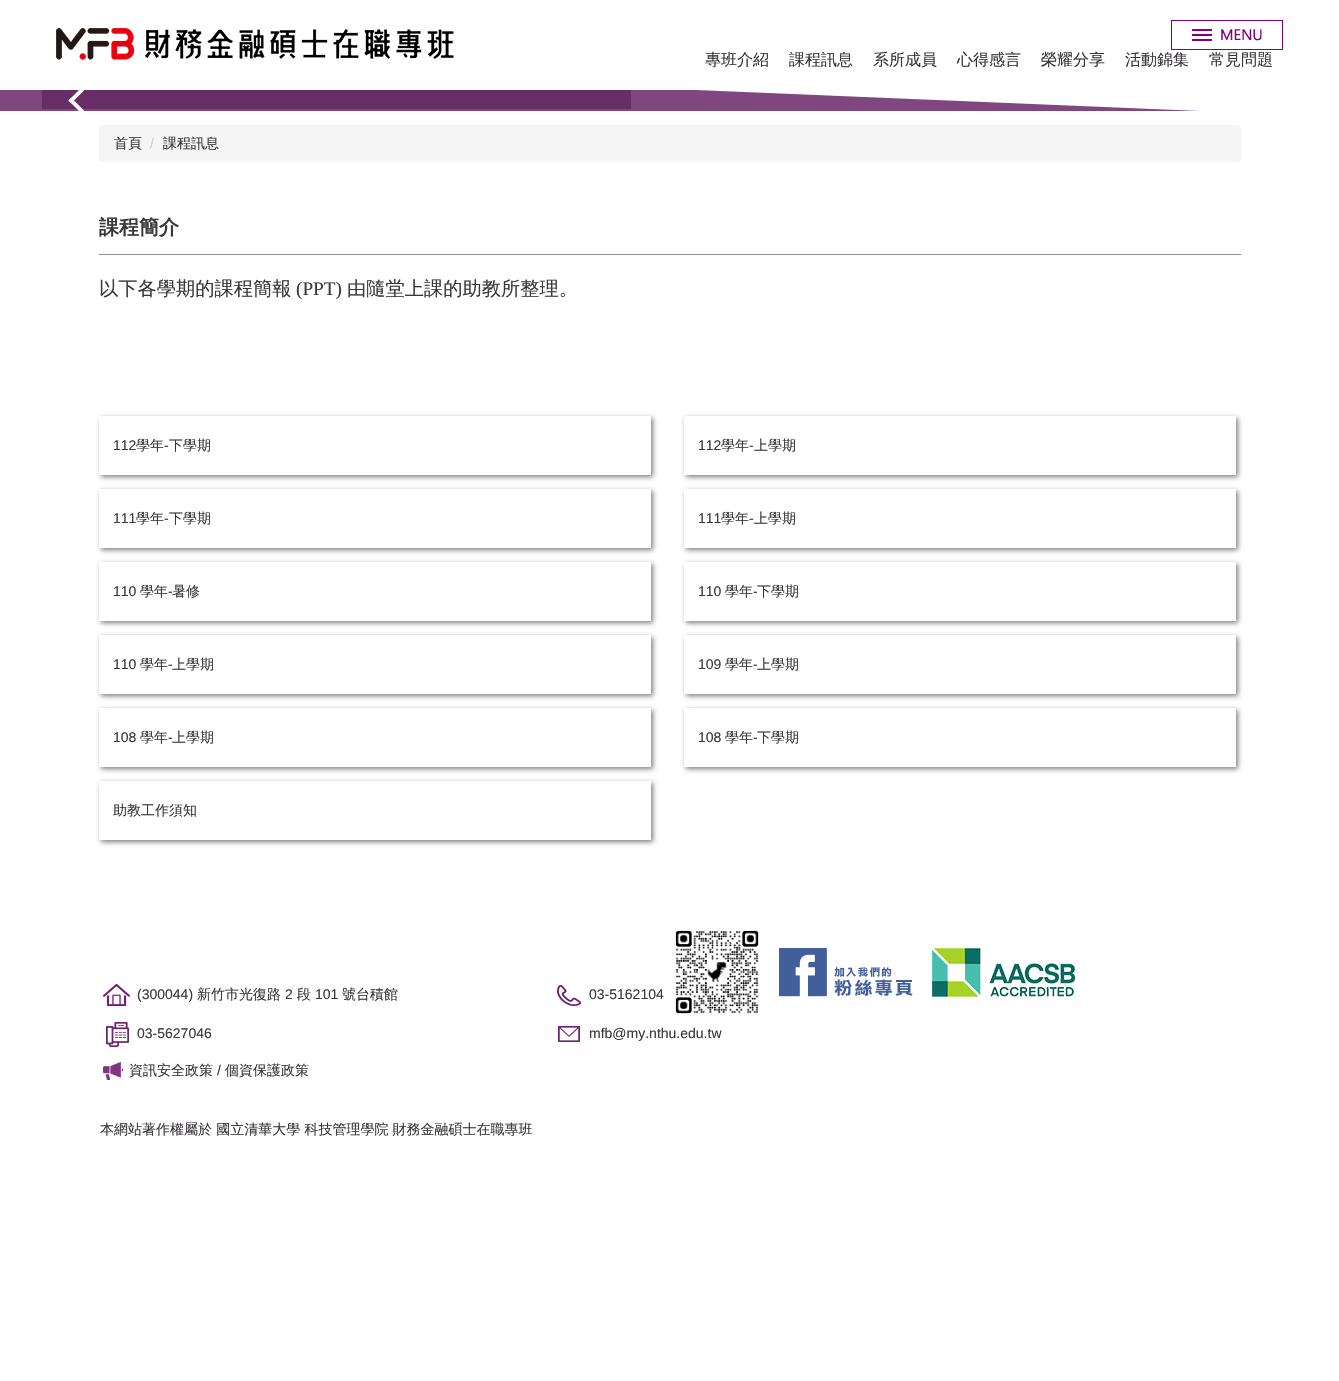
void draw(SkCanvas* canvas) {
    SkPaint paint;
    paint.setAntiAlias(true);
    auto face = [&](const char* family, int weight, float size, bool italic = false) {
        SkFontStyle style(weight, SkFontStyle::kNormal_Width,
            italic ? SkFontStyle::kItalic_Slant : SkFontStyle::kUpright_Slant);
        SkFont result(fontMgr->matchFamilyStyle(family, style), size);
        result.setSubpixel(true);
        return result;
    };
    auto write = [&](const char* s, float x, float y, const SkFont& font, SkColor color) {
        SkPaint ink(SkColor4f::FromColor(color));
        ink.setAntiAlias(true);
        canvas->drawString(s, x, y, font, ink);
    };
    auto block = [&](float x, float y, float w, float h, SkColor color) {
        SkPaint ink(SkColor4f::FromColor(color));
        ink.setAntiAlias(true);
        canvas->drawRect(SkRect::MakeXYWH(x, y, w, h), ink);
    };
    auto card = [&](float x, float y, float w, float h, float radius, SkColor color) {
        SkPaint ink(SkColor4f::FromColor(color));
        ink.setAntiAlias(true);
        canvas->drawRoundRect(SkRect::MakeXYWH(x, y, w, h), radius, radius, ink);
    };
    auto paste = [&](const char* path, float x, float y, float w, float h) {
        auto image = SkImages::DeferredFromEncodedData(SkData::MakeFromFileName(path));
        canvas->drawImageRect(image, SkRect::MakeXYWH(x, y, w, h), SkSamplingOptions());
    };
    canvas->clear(SK_ColorWHITE);
    paste("pic1.png", 56, 28, 398, 32);
    paste("pic2.png", 1192, 29, 70, 12);
    paint.setStyle(SkPaint::kStroke_Style);
    paint.setStrokeWidth(1);
    paint.setColor(SkColorSetRGB(127, 1, 127));
    canvas->drawRect(SkRect::MakeXYWH(1171.5f, 20.5f, 111, 29), paint);
    auto kFont1 = face("WenQuanYi Zen Hei", 500, 16);
    write("專班介紹", 705, 65, kFont1, SkColorSetRGB(58, 55, 58));
    write("課程訊息", 789, 65, kFont1, SkColorSetRGB(58, 55, 58));
    write("系所成員", 873, 65, kFont1, SkColorSetRGB(58, 55, 58));
    write("心得感言", 957, 65, kFont1, SkColorSetRGB(58, 55, 58));
    write("榮耀分享", 1041, 65, kFont1, SkColorSetRGB(58, 55, 58));
    write("活動錦集", 1125, 65, kFont1, SkColorSetRGB(58, 55, 58));
    write("常見問題", 1209, 65, kFont1, SkColorSetRGB(58, 55, 58));
    block(42, 90, 589, 19, SkColorSetRGB(128, 128, 128));
    canvas->save();
    canvas->clipRect(SkRect::MakeXYWH(0, 90, 1339, 21));
    paint.setStyle(SkPaint::kFill_Style);
    paint.setColor(SkColorSetARGB(204, 96, 24, 96));
    canvas->drawPath(SkPathBuilder().moveTo(1200, 111).lineTo(0, 111).lineTo(0, 61).close().detach(), paint);
    canvas->restore();
    paint.setColor(SK_ColorWHITE);
    canvas->drawPath(SkPathBuilder().moveTo(81, 113).lineTo(68.5f, 100.5f).lineTo(71, 97.5f).lineTo(84, 110.5f).close().detach(), paint);
    canvas->drawPath(SkPathBuilder().moveTo(71, 103.5f).lineTo(68.5f, 100.5f).lineTo(81, 88).lineTo(84, 90.5f).close().detach(), paint);
    card(99, 125, 1142, 37, 4, SkColorSetRGB(245, 245, 245));
    auto kFont2 = face("WenQuanYi Zen Hei", 500, 14);
    write("首頁", 114, 148, kFont2, SkColorSetRGB(58, 55, 58));
    auto kFont3 = face("Liberation Sans", 400, 14);
    write("/", 150, 148, kFont3, SkColorSetRGB(204, 204, 204));
    write("課程訊息", 163, 148, kFont2, SkColorSetRGB(58, 55, 58));
    block(99, 254, 1142, 1, SkColorSetRGB(143, 144, 145));
    auto kFont4 = face("WenQuanYi Zen Hei", 700, 20);
    write("課程簡介", 99, 234, kFont4, SkColorSetRGB(58, 55, 58));
    auto kFont5 = face("WenQuanYi Zen Hei", 500, 19.25f);
    write("以下各學期的課程簡報", 99, 295, kFont5, SkColorSetRGB(58, 55, 58));
    auto kFont6 = face("Liberation Serif", 400, 19.25f);
    write("(PPT)", 296, 295, kFont6, SkColorSetRGB(58, 55, 58));
    write("由隨堂上課的助教所整理。", 347, 295, kFont5, SkColorSetRGB(58, 55, 58));
    canvas->save();
    canvas->clipPath(SkPathBuilder(SkPathFillType::kEvenOdd).moveTo(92, 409).lineTo(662, 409).lineTo(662, 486).lineTo(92, 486).close().moveTo(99, 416).lineTo(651, 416).lineTo(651, 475).lineTo(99, 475).close().detach(), true);
    paint.setColor(SkColorSetARGB(128, 0, 0, 0));
    paint.setMaskFilter(SkMaskFilter::MakeBlur(kNormal_SkBlurStyle, 2.5f));
    canvas->drawRect(SkRect::MakeXYWH(101, 418, 552, 59), paint);
    paint.setMaskFilter(nullptr);
    canvas->restore();
    write("112", 113, 450, kFont3, SkColorSetRGB(58, 55, 58));
    write("學年", 136, 450, kFont2, SkColorSetRGB(58, 55, 58));
    write("-", 164, 450, kFont3, SkColorSetRGB(58, 55, 58));
    write("下學期", 169, 450, kFont2, SkColorSetRGB(58, 55, 58));
    canvas->save();
    canvas->clipPath(SkPathBuilder(SkPathFillType::kEvenOdd).moveTo(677, 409).lineTo(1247, 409).lineTo(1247, 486).lineTo(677, 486).close().moveTo(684, 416).lineTo(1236, 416).lineTo(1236, 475).lineTo(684, 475).close().detach(), true);
    paint.setMaskFilter(SkMaskFilter::MakeBlur(kNormal_SkBlurStyle, 2.5f));
    canvas->drawRect(SkRect::MakeXYWH(686, 418, 552, 59), paint);
    paint.setMaskFilter(nullptr);
    canvas->restore();
    write("112", 698, 450, kFont3, SkColorSetRGB(58, 55, 58));
    write("學年", 721, 450, kFont2, SkColorSetRGB(58, 55, 58));
    write("-", 749, 450, kFont3, SkColorSetRGB(58, 55, 58));
    write("上學期", 754, 450, kFont2, SkColorSetRGB(58, 55, 58));
    canvas->save();
    canvas->clipPath(SkPathBuilder(SkPathFillType::kEvenOdd).moveTo(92, 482).lineTo(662, 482).lineTo(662, 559).lineTo(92, 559).close().moveTo(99, 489).lineTo(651, 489).lineTo(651, 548).lineTo(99, 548).close().detach(), true);
    paint.setMaskFilter(SkMaskFilter::MakeBlur(kNormal_SkBlurStyle, 2.5f));
    canvas->drawRect(SkRect::MakeXYWH(101, 491, 552, 59), paint);
    paint.setMaskFilter(nullptr);
    canvas->restore();
    write("111", 113, 523, kFont3, SkColorSetRGB(58, 55, 58));
    write("學年", 136, 523, kFont2, SkColorSetRGB(58, 55, 58));
    write("-", 164, 523, kFont3, SkColorSetRGB(58, 55, 58));
    write("下學期", 169, 523, kFont2, SkColorSetRGB(58, 55, 58));
    canvas->save();
    canvas->clipPath(SkPathBuilder(SkPathFillType::kEvenOdd).moveTo(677, 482).lineTo(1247, 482).lineTo(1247, 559).lineTo(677, 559).close().moveTo(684, 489).lineTo(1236, 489).lineTo(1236, 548).lineTo(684, 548).close().detach(), true);
    paint.setMaskFilter(SkMaskFilter::MakeBlur(kNormal_SkBlurStyle, 2.5f));
    canvas->drawRect(SkRect::MakeXYWH(686, 491, 552, 59), paint);
    paint.setMaskFilter(nullptr);
    canvas->restore();
    write("111", 698, 523, kFont3, SkColorSetRGB(58, 55, 58));
    write("學年", 721, 523, kFont2, SkColorSetRGB(58, 55, 58));
    write("-", 749, 523, kFont3, SkColorSetRGB(58, 55, 58));
    write("上學期", 754, 523, kFont2, SkColorSetRGB(58, 55, 58));
    canvas->save();
    canvas->clipPath(SkPathBuilder(SkPathFillType::kEvenOdd).moveTo(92, 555).lineTo(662, 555).lineTo(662, 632).lineTo(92, 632).close().moveTo(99, 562).lineTo(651, 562).lineTo(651, 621).lineTo(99, 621).close().detach(), true);
    paint.setMaskFilter(SkMaskFilter::MakeBlur(kNormal_SkBlurStyle, 2.5f));
    canvas->drawRect(SkRect::MakeXYWH(101, 564, 552, 59), paint);
    paint.setMaskFilter(nullptr);
    canvas->restore();
    write("110", 113, 596, kFont3, SkColorSetRGB(58, 55, 58));
    write("學年", 140, 596, kFont2, SkColorSetRGB(58, 55, 58));
    write("-", 168, 596, kFont3, SkColorSetRGB(58, 55, 58));
    write("暑修", 172, 596, kFont2, SkColorSetRGB(58, 55, 58));
    canvas->save();
    canvas->clipPath(SkPathBuilder(SkPathFillType::kEvenOdd).moveTo(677, 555).lineTo(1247, 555).lineTo(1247, 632).lineTo(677, 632).close().moveTo(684, 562).lineTo(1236, 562).lineTo(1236, 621).lineTo(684, 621).close().detach(), true);
    paint.setMaskFilter(SkMaskFilter::MakeBlur(kNormal_SkBlurStyle, 2.5f));
    canvas->drawRect(SkRect::MakeXYWH(686, 564, 552, 59), paint);
    paint.setMaskFilter(nullptr);
    canvas->restore();
    write("110", 698, 596, kFont3, SkColorSetRGB(58, 55, 58));
    write("學年", 725, 596, kFont2, SkColorSetRGB(58, 55, 58));
    write("-", 753, 596, kFont3, SkColorSetRGB(58, 55, 58));
    write("下學期", 757, 596, kFont2, SkColorSetRGB(58, 55, 58));
    canvas->save();
    canvas->clipPath(SkPathBuilder(SkPathFillType::kEvenOdd).moveTo(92, 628).lineTo(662, 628).lineTo(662, 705).lineTo(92, 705).close().moveTo(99, 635).lineTo(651, 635).lineTo(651, 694).lineTo(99, 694).close().detach(), true);
    paint.setMaskFilter(SkMaskFilter::MakeBlur(kNormal_SkBlurStyle, 2.5f));
    canvas->drawRect(SkRect::MakeXYWH(101, 637, 552, 59), paint);
    paint.setMaskFilter(nullptr);
    canvas->restore();
    write("110", 113, 669, kFont3, SkColorSetRGB(58, 55, 58));
    write("學年", 140, 669, kFont2, SkColorSetRGB(58, 55, 58));
    write("-", 168, 669, kFont3, SkColorSetRGB(58, 55, 58));
    write("上學期", 172, 669, kFont2, SkColorSetRGB(58, 55, 58));
    canvas->save();
    canvas->clipPath(SkPathBuilder(SkPathFillType::kEvenOdd).moveTo(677, 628).lineTo(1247, 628).lineTo(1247, 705).lineTo(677, 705).close().moveTo(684, 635).lineTo(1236, 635).lineTo(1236, 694).lineTo(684, 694).close().detach(), true);
    paint.setMaskFilter(SkMaskFilter::MakeBlur(kNormal_SkBlurStyle, 2.5f));
    canvas->drawRect(SkRect::MakeXYWH(686, 637, 552, 59), paint);
    paint.setMaskFilter(nullptr);
    canvas->restore();
    write("109", 698, 669, kFont3, SkColorSetRGB(58, 55, 58));
    write("學年", 725, 669, kFont2, SkColorSetRGB(58, 55, 58));
    write("-", 753, 669, kFont3, SkColorSetRGB(58, 55, 58));
    write("上學期", 757, 669, kFont2, SkColorSetRGB(58, 55, 58));
    canvas->save();
    canvas->clipPath(SkPathBuilder(SkPathFillType::kEvenOdd).moveTo(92, 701).lineTo(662, 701).lineTo(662, 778).lineTo(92, 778).close().moveTo(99, 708).lineTo(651, 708).lineTo(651, 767).lineTo(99, 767).close().detach(), true);
    paint.setMaskFilter(SkMaskFilter::MakeBlur(kNormal_SkBlurStyle, 2.5f));
    canvas->drawRect(SkRect::MakeXYWH(101, 710, 552, 59), paint);
    paint.setMaskFilter(nullptr);
    canvas->restore();
    write("108", 113, 742, kFont3, SkColorSetRGB(58, 55, 58));
    write("學年", 140, 742, kFont2, SkColorSetRGB(58, 55, 58));
    write("-", 168, 742, kFont3, SkColorSetRGB(58, 55, 58));
    write("上學期", 172, 742, kFont2, SkColorSetRGB(58, 55, 58));
    canvas->save();
    canvas->clipPath(SkPathBuilder(SkPathFillType::kEvenOdd).moveTo(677, 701).lineTo(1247, 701).lineTo(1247, 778).lineTo(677, 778).close().moveTo(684, 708).lineTo(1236, 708).lineTo(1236, 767).lineTo(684, 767).close().detach(), true);
    paint.setMaskFilter(SkMaskFilter::MakeBlur(kNormal_SkBlurStyle, 2.5f));
    canvas->drawRect(SkRect::MakeXYWH(686, 710, 552, 59), paint);
    paint.setMaskFilter(nullptr);
    canvas->restore();
    write("108", 698, 742, kFont3, SkColorSetRGB(58, 55, 58));
    write("學年", 725, 742, kFont2, SkColorSetRGB(58, 55, 58));
    write("-", 753, 742, kFont3, SkColorSetRGB(58, 55, 58));
    write("下學期", 757, 742, kFont2, SkColorSetRGB(58, 55, 58));
    canvas->save();
    canvas->clipPath(SkPathBuilder(SkPathFillType::kEvenOdd).moveTo(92, 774).lineTo(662, 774).lineTo(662, 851).lineTo(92, 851).close().moveTo(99, 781).lineTo(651, 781).lineTo(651, 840).lineTo(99, 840).close().detach(), true);
    paint.setMaskFilter(SkMaskFilter::MakeBlur(kNormal_SkBlurStyle, 2.5f));
    canvas->drawRect(SkRect::MakeXYWH(101, 783, 552, 59), paint);
    paint.setMaskFilter(nullptr);
    canvas->restore();
    write("助教工作須知", 113, 815, kFont2, SkColorSetRGB(58, 55, 58));
    paste("pic3.png", 675, 930, 84, 84);
    paste("pic4.png", 779, 948, 134, 49);
    paste("pic5.png", 932, 948, 143, 49);
    paste("pic6.png", 103, 984, 27, 22);
    write("(300044)", 137, 999, kFont3, SkColorSetRGB(58, 55, 58));
    write("新竹市光復路", 197, 999, kFont2, SkColorSetRGB(58, 55, 58));
    write("2", 285, 999, kFont3, SkColorSetRGB(58, 55, 58));
    write("段", 297, 999, kFont2, SkColorSetRGB(58, 55, 58));
    write("101", 315, 999, kFont3, SkColorSetRGB(58, 55, 58));
    write("號台積館", 342, 999, kFont2, SkColorSetRGB(58, 55, 58));
    paste("pic7.png", 557, 985, 24, 21);
    write("03-5162104", 589, 999, kFont3, SkColorSetRGB(58, 55, 58));
    paste("pic8.png", 106, 1022, 23, 25);
    write("03-5627046", 137, 1038, kFont3, SkColorSetRGB(58, 55, 58));
    paste("pic9.png", 558, 1026, 22, 16);
    write("mfb@my.nthu.edu.tw", 589, 1038, kFont3, SkColorSetRGB(58, 55, 58));
    paste("pic10.png", 103, 1062, 20, 18);
    write("資訊安全政策", 129, 1075, kFont2, SkColorSetRGB(58, 55, 58));
    write("/", 217, 1075, kFont3, SkColorSetRGB(58, 55, 58));
    write("個資保護政策", 225, 1075, kFont2, SkColorSetRGB(58, 55, 58));
    write("本網站著作權屬於 國立清華大學 科技管理學院 財務金融碩士在職專班", 100, 1134, kFont2, SkColorSetRGB(58, 55, 58));
}
